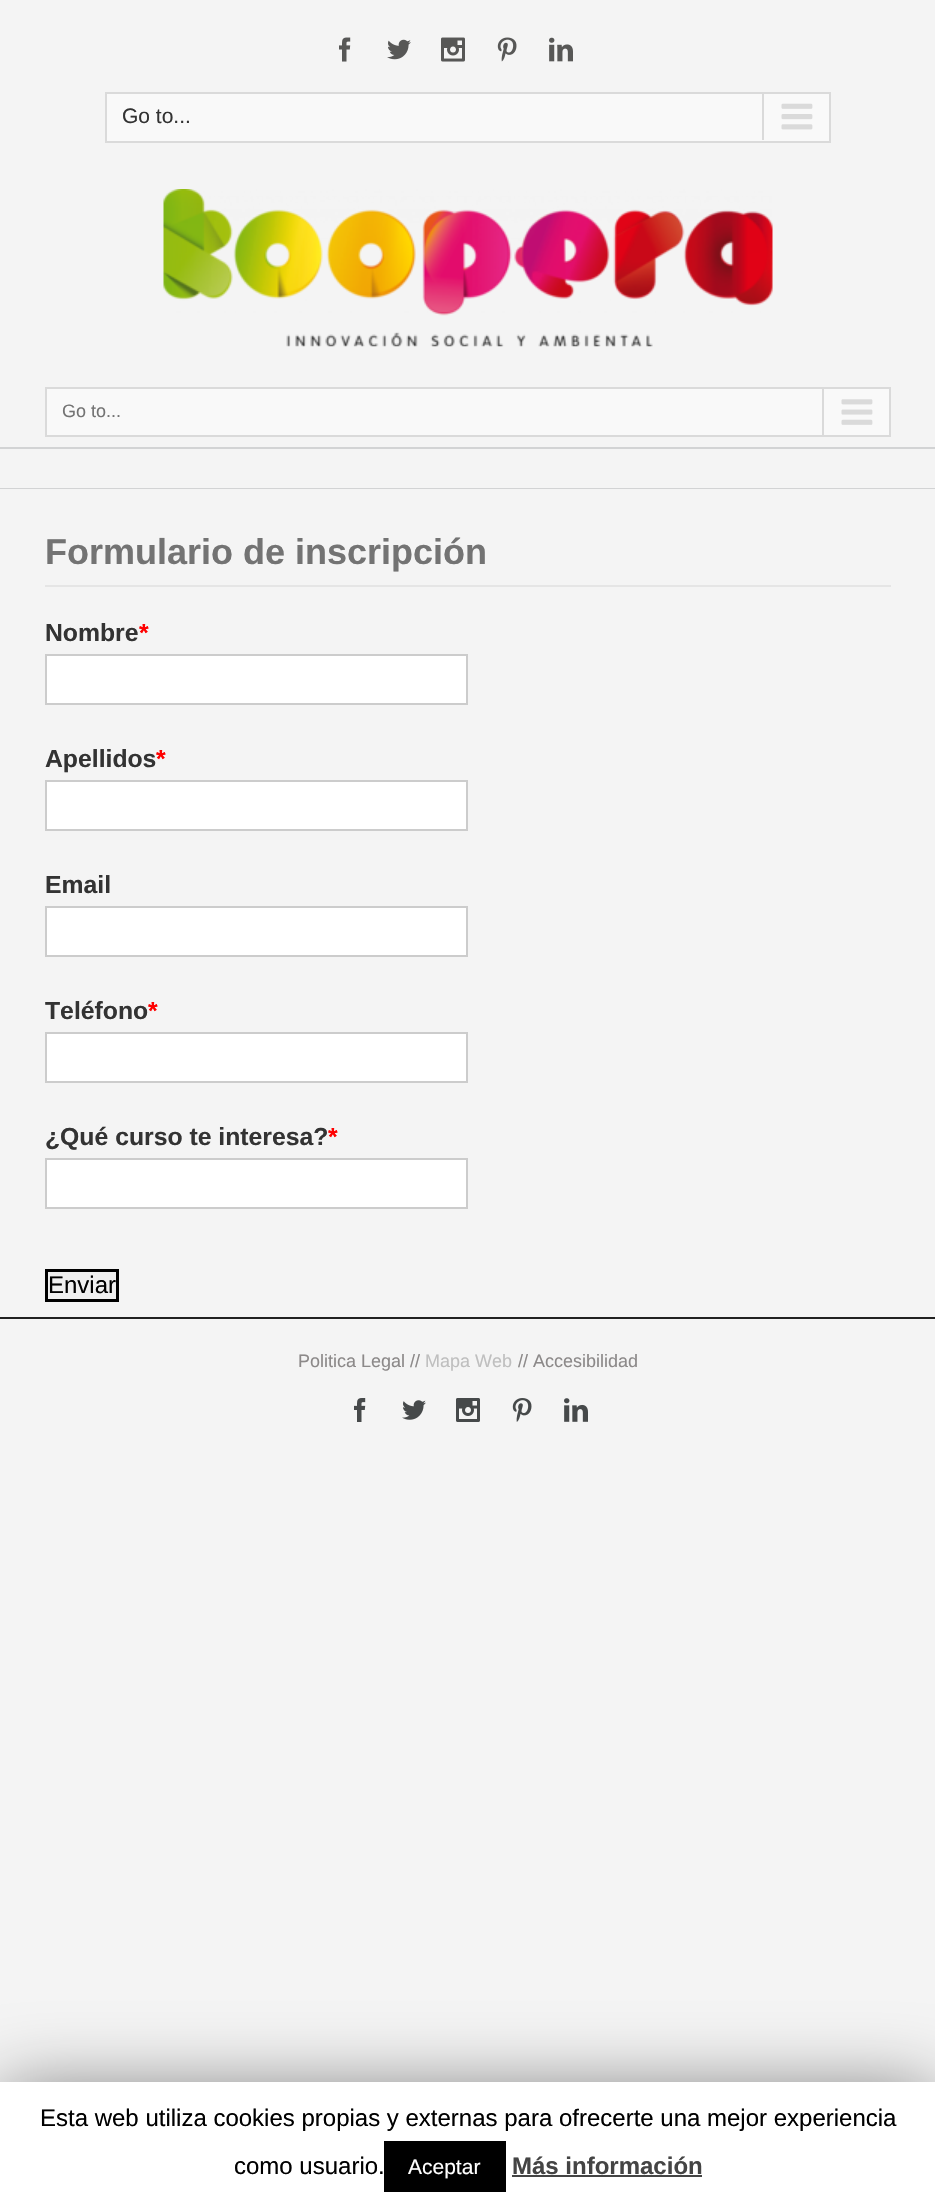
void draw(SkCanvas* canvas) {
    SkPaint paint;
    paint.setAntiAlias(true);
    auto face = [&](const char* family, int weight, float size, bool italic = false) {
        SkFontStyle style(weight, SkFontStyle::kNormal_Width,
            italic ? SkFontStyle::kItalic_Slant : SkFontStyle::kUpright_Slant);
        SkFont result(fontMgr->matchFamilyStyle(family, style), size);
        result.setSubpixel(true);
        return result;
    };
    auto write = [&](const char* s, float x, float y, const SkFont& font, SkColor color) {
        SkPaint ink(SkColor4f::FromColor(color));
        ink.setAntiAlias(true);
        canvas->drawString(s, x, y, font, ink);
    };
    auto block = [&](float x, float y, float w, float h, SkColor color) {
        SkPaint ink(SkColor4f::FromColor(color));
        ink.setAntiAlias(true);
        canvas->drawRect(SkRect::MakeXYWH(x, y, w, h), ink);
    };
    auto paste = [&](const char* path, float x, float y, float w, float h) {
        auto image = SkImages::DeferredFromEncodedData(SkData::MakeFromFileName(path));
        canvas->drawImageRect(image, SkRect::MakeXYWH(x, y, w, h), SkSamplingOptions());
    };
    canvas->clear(SkColorSetRGB(244, 244, 244));
    paste("pic1.png", 339, 37, 12, 25);
    paste("pic2.png", 387, 39, 24, 21);
    paste("pic3.png", 441, 37, 24, 25);
    paste("pic4.png", 497, 37, 20, 25);
    paste("pic5.png", 549, 37, 24, 25);
    paint.setColor(SkColorSetRGB(249, 249, 249));
    canvas->drawRect(SkRect::MakeXYWH(106, 93, 724, 49), paint);
    paint.setStyle(SkPaint::kStroke_Style);
    paint.setStrokeWidth(2);
    paint.setColor(SkColorSetRGB(218, 218, 218));
    canvas->drawRect(SkRect::MakeXYWH(106, 93, 724, 49), paint);
    auto kFont1 = face("Liberation Sans", 400, 21);
    write("Go to...", 122, 123, kFont1, SkColorSetRGB(51, 51, 51));
    block(762, 93, 2, 47, SkColorSetRGB(218, 218, 218));
    paste("pic6.png", 781, 103, 32, 27);
    paste("pic7.png", 163, 189, 610, 158);
    paint.setStyle(SkPaint::kFill_Style);
    paint.setColor(SkColorSetRGB(249, 249, 249));
    canvas->drawRect(SkRect::MakeXYWH(46, 388, 844, 48), paint);
    paint.setStyle(SkPaint::kStroke_Style);
    paint.setColor(SkColorSetRGB(218, 218, 218));
    canvas->drawRect(SkRect::MakeXYWH(46, 388, 844, 48), paint);
    auto kFont2 = face("Liberation Sans", 400, 18);
    write("Go to...", 62, 417, kFont2, SkColorSetRGB(115, 115, 115));
    block(822, 389, 2, 46, SkColorSetRGB(218, 218, 218));
    paste("pic8.png", 841, 399, 32, 26);
    block(0, 447, 935, 2, SkColorSetRGB(210, 211, 212));
    block(0, 488, 935, 1, SkColorSetRGB(210, 211, 212));
    block(45, 585, 846, 2, SkColorSetRGB(229, 229, 229));
    auto kFont3 = face("Liberation Sans", 700, 36);
    write("Formulario de inscripción", 45, 564, kFont3, SkColorSetRGB(115, 115, 115));
    auto kFont4 = face("Liberation Sans", 700, 24.75f);
    write("Nombre", 45, 641, kFont4, SkColorSetRGB(51, 51, 51));
    write("*", 139, 641, kFont4, SkColorSetRGB(255, 0, 0));
    paint.setStyle(SkPaint::kFill_Style);
    paint.setColor(SK_ColorWHITE);
    canvas->drawRect(SkRect::MakeXYWH(46, 655, 421, 49), paint);
    paint.setStyle(SkPaint::kStroke_Style);
    paint.setColor(SkColorSetRGB(204, 204, 204));
    canvas->drawRect(SkRect::MakeXYWH(46, 655, 421, 49), paint);
    write("Apellidos", 45, 767, kFont4, SkColorSetRGB(51, 51, 51));
    write("*", 156, 767, kFont4, SkColorSetRGB(255, 0, 0));
    paint.setStyle(SkPaint::kFill_Style);
    paint.setColor(SK_ColorWHITE);
    canvas->drawRect(SkRect::MakeXYWH(46, 781, 421, 49), paint);
    paint.setStyle(SkPaint::kStroke_Style);
    paint.setColor(SkColorSetRGB(204, 204, 204));
    canvas->drawRect(SkRect::MakeXYWH(46, 781, 421, 49), paint);
    write("Email", 45, 893, kFont4, SkColorSetRGB(51, 51, 51));
    paint.setStyle(SkPaint::kFill_Style);
    paint.setColor(SK_ColorWHITE);
    canvas->drawRect(SkRect::MakeXYWH(46, 907, 421, 49), paint);
    paint.setStyle(SkPaint::kStroke_Style);
    paint.setColor(SkColorSetRGB(204, 204, 204));
    canvas->drawRect(SkRect::MakeXYWH(46, 907, 421, 49), paint);
    write("Teléfono", 45, 1019, kFont4, SkColorSetRGB(51, 51, 51));
    write("*", 148, 1019, kFont4, SkColorSetRGB(255, 0, 0));
    paint.setStyle(SkPaint::kFill_Style);
    paint.setColor(SK_ColorWHITE);
    canvas->drawRect(SkRect::MakeXYWH(46, 1033, 421, 49), paint);
    paint.setStyle(SkPaint::kStroke_Style);
    paint.setColor(SkColorSetRGB(204, 204, 204));
    canvas->drawRect(SkRect::MakeXYWH(46, 1033, 421, 49), paint);
    write("¿Qué curso te interesa?", 45, 1145, kFont4, SkColorSetRGB(51, 51, 51));
    write("*", 328, 1145, kFont4, SkColorSetRGB(255, 0, 0));
    paint.setStyle(SkPaint::kFill_Style);
    paint.setColor(SK_ColorWHITE);
    canvas->drawRect(SkRect::MakeXYWH(46, 1159, 421, 49), paint);
    paint.setStyle(SkPaint::kStroke_Style);
    paint.setColor(SkColorSetRGB(204, 204, 204));
    canvas->drawRect(SkRect::MakeXYWH(46, 1159, 421, 49), paint);
    paint.setStyle(SkPaint::kFill_Style);
    paint.setColor(SkColorSetRGB(239, 239, 239));
    canvas->drawRect(SkRect::MakeXYWH(46.5f, 1270.5f, 71, 30), paint);
    paint.setStyle(SkPaint::kStroke_Style);
    paint.setStrokeWidth(3);
    paint.setColor(SK_ColorBLACK);
    canvas->drawRect(SkRect::MakeXYWH(46.5f, 1270.5f, 71, 30), paint);
    auto kFont5 = face("Liberation Sans", 400, 24);
    write("Enviar", 48, 1293, kFont5, SK_ColorBLACK);
    block(0, 1317, 935, 2, SkColorSetRGB(33, 33, 33));
    write("Politica Legal //", 298, 1367, kFont2, SkColorSetRGB(140, 137, 137));
    write("Mapa Web", 425, 1367, kFont2, SkColorSetRGB(191, 191, 191));
    write("// Accesibilidad", 518, 1367, kFont2, SkColorSetRGB(140, 137, 137));
    paste("pic9.png", 354, 1398, 12, 24);
    paste("pic10.png", 402, 1400, 24, 20);
    paste("pic11.png", 456, 1398, 24, 24);
    paste("pic12.png", 512, 1398, 20, 24);
    paste("pic13.png", 564, 1398, 24, 24);
    paint.setStyle(SkPaint::kFill_Style);
    paint.setColor(SkColorSetARGB(128, 0, 0, 0));
    paint.setMaskFilter(SkMaskFilter::MakeBlur(kNormal_SkBlurStyle, 37.5f));
    canvas->drawRect(SkRect::MakeXYWH(0, 2090, 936, 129), paint);
    paint.setMaskFilter(nullptr);
    block(0, 2082, 935, 129, SK_ColorWHITE);
    write("Esta web utiliza cookies propias y externas para ofrecerte una mejor experiencia", 40, 2126, kFont5, SK_ColorBLACK);
    write("como usuario.", 234, 2174, kFont5, SK_ColorBLACK);
    block(384, 2141, 122, 51, SK_ColorBLACK);
    write("Aceptar", 408, 2174, kFont1, SK_ColorWHITE);
    auto kFont6 = face("Liberation Sans", 700, 24);
    write("Más información", 512, 2174, kFont6, SkColorSetRGB(68, 68, 68));
    block(512, 2175, 190, 2, SkColorSetRGB(68, 68, 68));
}
